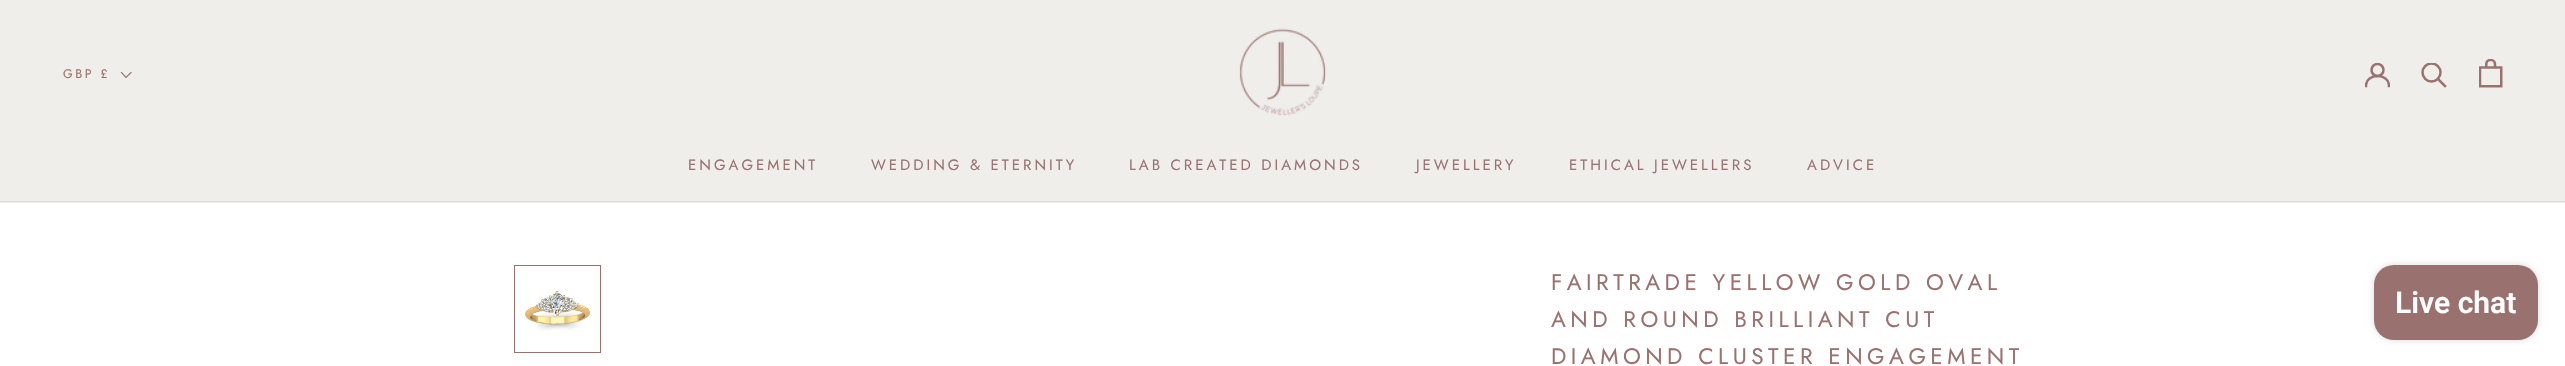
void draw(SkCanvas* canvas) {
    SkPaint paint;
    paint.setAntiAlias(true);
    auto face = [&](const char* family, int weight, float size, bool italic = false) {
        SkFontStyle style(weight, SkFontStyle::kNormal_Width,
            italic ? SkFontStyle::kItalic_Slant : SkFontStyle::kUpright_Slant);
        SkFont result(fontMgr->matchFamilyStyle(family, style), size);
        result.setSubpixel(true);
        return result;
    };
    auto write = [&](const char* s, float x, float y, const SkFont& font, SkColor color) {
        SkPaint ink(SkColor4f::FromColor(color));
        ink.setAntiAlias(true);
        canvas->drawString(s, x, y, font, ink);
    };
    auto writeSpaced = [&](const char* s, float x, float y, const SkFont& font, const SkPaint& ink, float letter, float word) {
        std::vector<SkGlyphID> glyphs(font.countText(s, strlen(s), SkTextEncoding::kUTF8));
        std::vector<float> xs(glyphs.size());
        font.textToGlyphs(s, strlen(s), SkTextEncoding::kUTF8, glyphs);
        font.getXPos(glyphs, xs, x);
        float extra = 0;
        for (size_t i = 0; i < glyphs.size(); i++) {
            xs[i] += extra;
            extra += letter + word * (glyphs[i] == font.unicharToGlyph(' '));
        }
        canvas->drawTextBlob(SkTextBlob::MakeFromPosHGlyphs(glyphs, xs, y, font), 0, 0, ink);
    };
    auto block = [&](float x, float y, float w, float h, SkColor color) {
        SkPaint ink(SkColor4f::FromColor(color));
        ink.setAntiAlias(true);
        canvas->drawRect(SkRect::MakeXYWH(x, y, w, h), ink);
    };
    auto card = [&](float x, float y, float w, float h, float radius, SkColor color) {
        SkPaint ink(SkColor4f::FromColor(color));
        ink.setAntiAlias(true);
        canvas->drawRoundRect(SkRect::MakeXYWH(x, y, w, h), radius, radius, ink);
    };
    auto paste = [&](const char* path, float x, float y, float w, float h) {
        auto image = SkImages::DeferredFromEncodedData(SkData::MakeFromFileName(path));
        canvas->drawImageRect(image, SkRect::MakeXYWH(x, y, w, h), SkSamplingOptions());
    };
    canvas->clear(SK_ColorWHITE);
    block(0, 0, 2565, 203, SkColorSetRGB(240, 238, 235));
    block(0, 201, 2565, 1, SkColorSetRGB(227, 219, 217));
    paste("pic1.png", 1239, 28, 87, 88);
    canvas->save();
    canvas->clipRect(SkRect::MakeXYWH(2365, 63, 25, 25));
    paint.setStyle(SkPaint::kStroke_Style);
    paint.setStrokeWidth(2.5f);
    paint.setStrokeCap(SkPaint::kSquare_Cap);
    paint.setColor(SkColorSetRGB(153, 114, 112));
    canvas->drawPath(SkPathBuilder().moveTo(2366, 86).cubicTo(2366, 72.5f, 2389, 72.5f, 2389, 86).detach(), paint);
    paint.setStrokeCap(SkPaint::kButt_Cap);
    canvas->drawCircle(2377.5f, 70, 6, paint);
    canvas->restore();
    paint.setStrokeCap(SkPaint::kSquare_Cap);
    canvas->drawPath(SkPathBuilder().moveTo(2445, 86).lineTo(2438, 79).detach(), paint);
    canvas->save();
    canvas->clipRect(SkRect::MakeXYWH(2421, 63, 27, 26));
    paint.setStrokeCap(SkPaint::kButt_Cap);
    canvas->drawCircle(2431.5f, 72.5f, 9, paint);
    canvas->restore();
    paste("pic2.png", 2479, 59, 24, 29);
    auto kFont1 = face("Jost", 400, 12.5f);
    paint.setStyle(SkPaint::kFill_Style);
    writeSpaced("GBP £", 63, 78, kFont1, paint, 2.5f, 0);
    paint.setStyle(SkPaint::kStroke_Style);
    paint.setStrokeWidth(1.2f);
    paint.setStrokeCap(SkPaint::kSquare_Cap);
    canvas->drawPath(SkPathBuilder().moveTo(131, 72.5f).lineTo(126, 77.5f).lineTo(121.5f, 72.5f).detach(), paint);
    auto kFont2 = face("Jost", 400, 15);
    paint.setStyle(SkPaint::kFill_Style);
    writeSpaced("ENGAGEMENT", 688, 170, kFont2, paint, 3, 0);
    writeSpaced("WEDDING & ETERNITY", 871, 170, kFont2, paint, 3, 0);
    writeSpaced("LAB CREATED DIAMONDS", 1129, 170, kFont2, paint, 3, 0);
    writeSpaced("JEWELLERY", 1416, 170, kFont2, paint, 3, 0);
    writeSpaced("ETHICAL JEWELLERS", 1569, 170, kFont2, paint, 3, 0);
    writeSpaced("ADVICE", 1807, 170, kFont2, paint, 3, 0);
    paint.setStyle(SkPaint::kStroke_Style);
    paint.setStrokeWidth(1);
    paint.setStrokeCap(SkPaint::kButt_Cap);
    canvas->drawRect(SkRect::MakeXYWH(514.5f, 265.5f, 86, 87), paint);
    paste("pic3.png", 524, 290, 67, 41);
    auto kFont3 = face("Jost", 400, 22.5f);
    paint.setStyle(SkPaint::kFill_Style);
    writeSpaced("FAIRTRADE YELLOW GOLD OVAL", 1551, 290, kFont3, paint, 4.5f, 0);
    writeSpaced("AND ROUND BRILLIANT CUT", 1551, 327, kFont3, paint, 4.5f, 0);
    writeSpaced("DIAMOND CLUSTER ENGAGEMENT", 1551, 364, kFont3, paint, 4.5f, 0);
    paint.setColor(SkColorSetARGB(38, 0, 0, 0));
    paint.setMaskFilter(SkMaskFilter::MakeBlur(kNormal_SkBlurStyle, 3));
    canvas->drawRoundRect(SkRect::MakeXYWH(2374, 265, 164, 75), 20, 20, paint);
    paint.setMaskFilter(nullptr);
    card(2374, 265, 164, 75, 20, SkColorSetRGB(153, 114, 112));
    auto kFont4 = face("Roboto", 600, 30);
    write("Live chat", 2395, 313, kFont4, SK_ColorWHITE);
}
